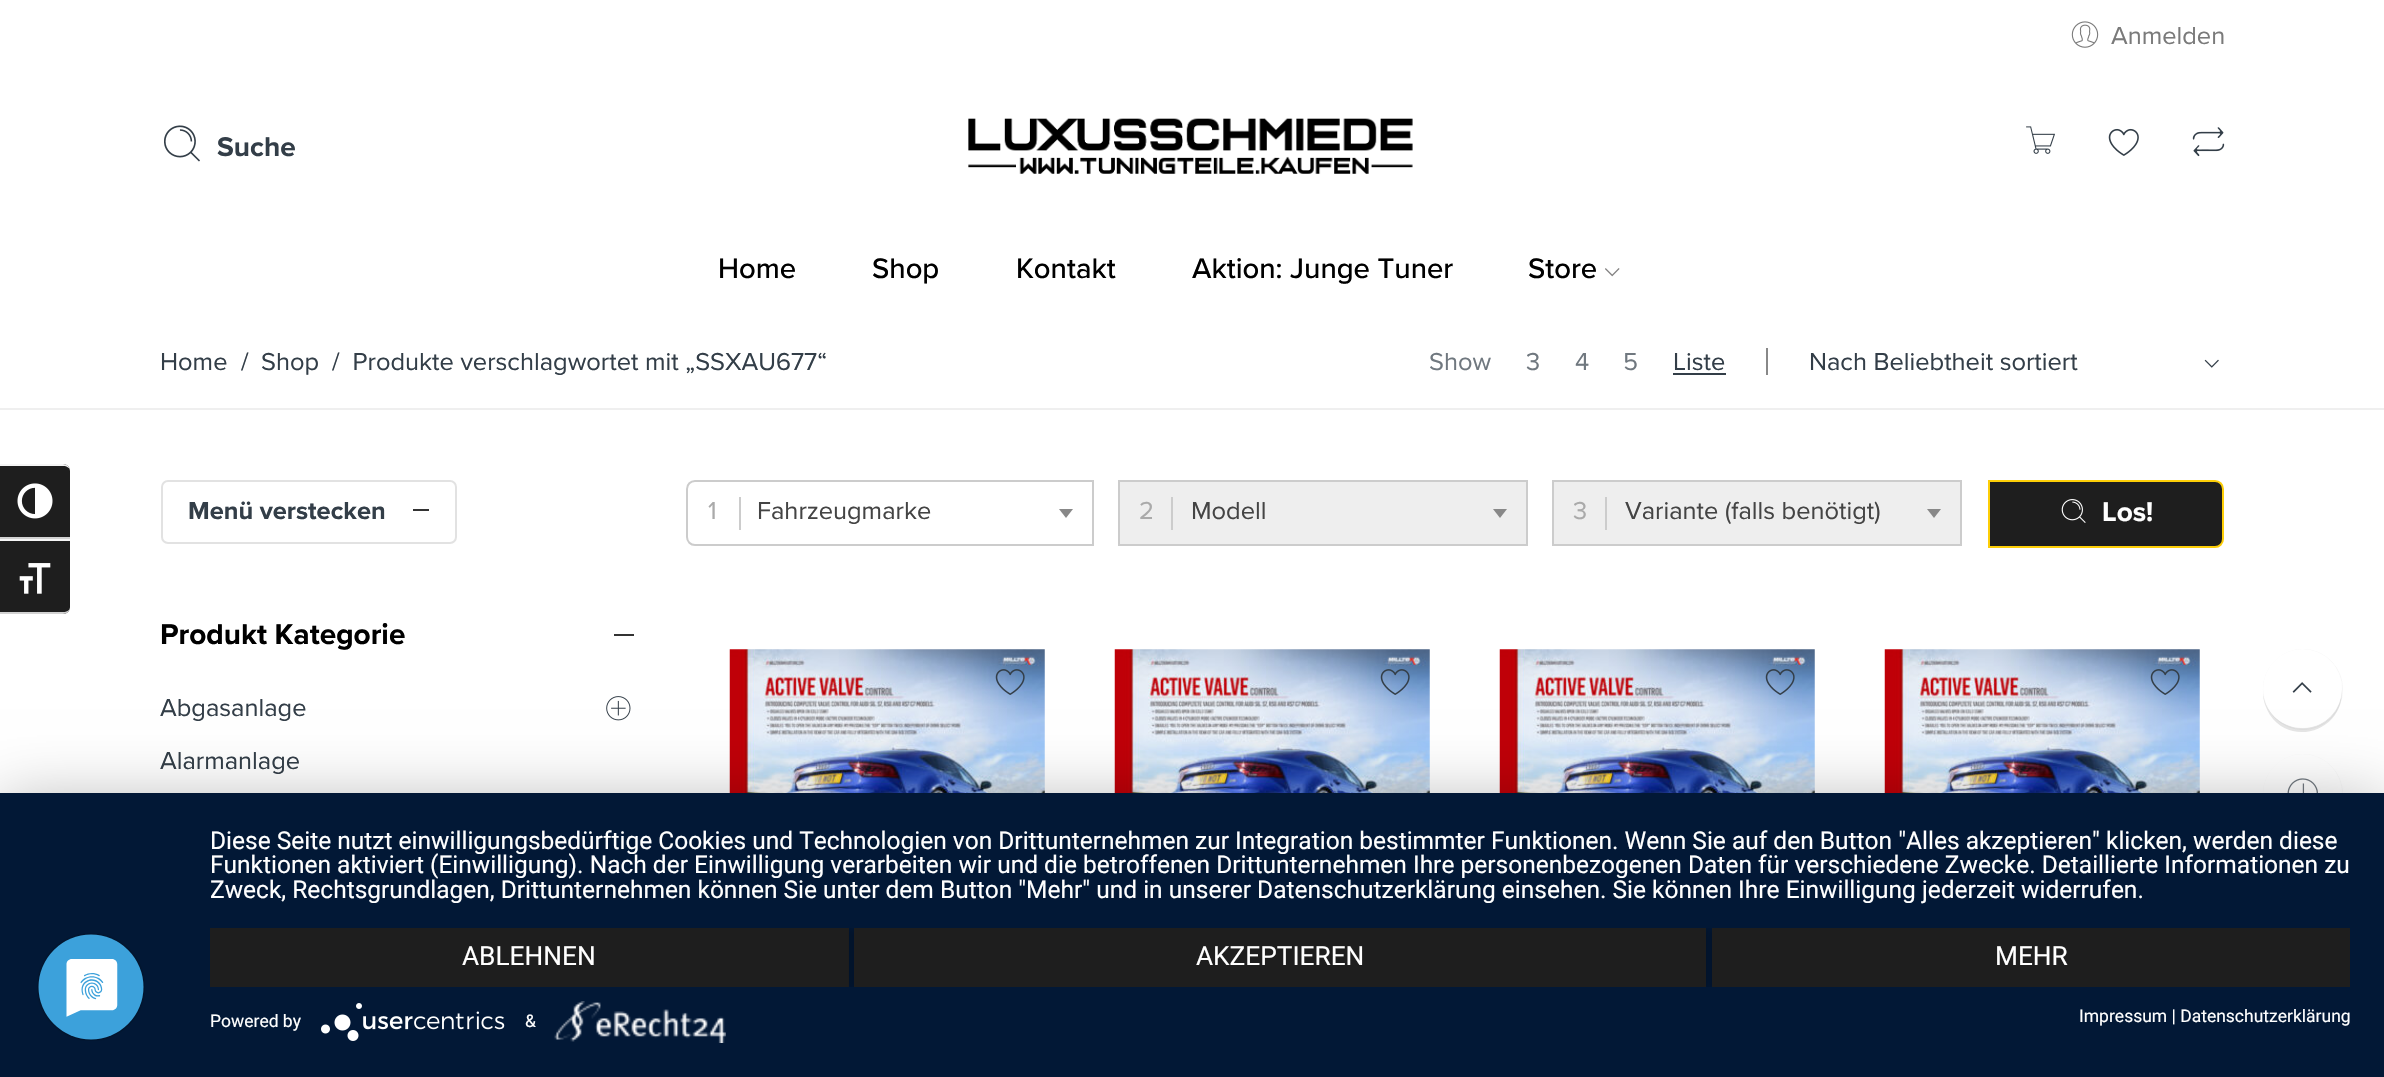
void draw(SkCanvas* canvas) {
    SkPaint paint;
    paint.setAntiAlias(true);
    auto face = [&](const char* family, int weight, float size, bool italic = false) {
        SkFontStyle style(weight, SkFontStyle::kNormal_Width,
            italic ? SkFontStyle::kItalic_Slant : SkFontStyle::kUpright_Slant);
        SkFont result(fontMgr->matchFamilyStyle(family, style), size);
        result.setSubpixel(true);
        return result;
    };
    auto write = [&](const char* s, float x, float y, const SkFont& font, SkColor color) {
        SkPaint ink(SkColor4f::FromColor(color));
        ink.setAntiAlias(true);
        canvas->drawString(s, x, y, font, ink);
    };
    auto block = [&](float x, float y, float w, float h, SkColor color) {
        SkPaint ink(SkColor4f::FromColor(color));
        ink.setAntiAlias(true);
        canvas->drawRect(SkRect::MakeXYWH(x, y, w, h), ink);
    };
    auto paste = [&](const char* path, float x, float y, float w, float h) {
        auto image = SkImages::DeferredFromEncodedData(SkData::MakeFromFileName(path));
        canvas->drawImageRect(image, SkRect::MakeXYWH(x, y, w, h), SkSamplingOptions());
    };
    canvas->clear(SK_ColorWHITE);
    paint.setColor(SkColorSetRGB(30, 30, 30));
    canvas->drawPath(SkPathBuilder().moveTo(0, 464).lineTo(63, 464).cubicTo(67, 464, 70, 467, 70, 471).lineTo(70, 539).lineTo(0, 539).close().detach(), paint);
    paint.setColor(SkColorSetRGB(245, 245, 245));
    canvas->drawPath(SkPathBuilder().moveTo(0, 466).lineTo(63, 466).cubicTo(67, 466, 70, 468, 70, 471).cubicTo(70, 467, 67, 464, 63, 464).lineTo(0, 464).close().detach(), paint);
    block(0, 537, 70, 2, SkColorSetRGB(210, 210, 210));
    paste("pic1.png", 17, 483, 36, 36);
    paint.setColor(SkColorSetRGB(30, 30, 30));
    canvas->drawPath(SkPathBuilder().moveTo(0, 539).lineTo(70, 539).lineTo(70, 607).cubicTo(70, 611, 67, 614, 63, 614).lineTo(0, 614).close().detach(), paint);
    block(0, 539, 70, 2, SkColorSetRGB(245, 245, 245));
    paint.setColor(SkColorSetRGB(210, 210, 210));
    canvas->drawPath(SkPathBuilder().moveTo(0, 612).lineTo(0, 614).lineTo(63, 614).cubicTo(67, 614, 70, 611, 70, 607).cubicTo(70, 610, 67, 612, 63, 612).close().detach(), paint);
    paste("pic2.png", 19, 563, 32, 31);
    paste("pic3.png", 2071, 21, 28, 27);
    auto kFont1 = face("Proxima Nova", 400, 25.4f);
    write("Anmelden", 2111, 44, kFont1, SkColorSetRGB(122, 122, 122));
    paste("pic4.png", 164, 125, 36, 37);
    auto kFont2 = face("Proxima Nova", 700, 28);
    write("Suche", 217, 156, kFont2, SkColorSetRGB(51, 62, 72));
    paste("pic5.png", 968, 118, 445, 56);
    paste("pic6.png", 2026, 126, 29, 28);
    paste("pic7.png", 2108, 128, 31, 28);
    paste("pic8.png", 2192, 127, 33, 30);
    auto kFont3 = face("Proxima Nova", 500, 29.25f);
    write("Home", 718, 278, kFont3, SK_ColorBLACK);
    write("Shop", 872, 278, kFont3, SK_ColorBLACK);
    write("Kontakt", 1016, 278, kFont3, SK_ColorBLACK);
    write("Aktion: Junge Tuner", 1192, 278, kFont3, SK_ColorBLACK);
    write("Store", 1528, 278, kFont3, SK_ColorBLACK);
    paste("pic9.png", 1605, 268, 15, 9);
    block(0, 408, 2384, 2, SkColorSetRGB(239, 239, 239));
    write("Home", 160, 370, kFont1, SkColorSetRGB(51, 62, 72));
    write("/", 241, 370, kFont1, SkColorSetRGB(51, 62, 72));
    write("Shop", 261, 370, kFont1, SkColorSetRGB(51, 62, 72));
    write("/  Produkte verschlagwortet mit „SSXAU677“", 332, 370, kFont1, SkColorSetRGB(51, 62, 72));
    write("Show", 1429, 370, kFont1, SkColorSetRGB(112, 120, 127));
    write("3", 1526, 370, kFont1, SkColorSetRGB(112, 120, 127));
    write("4", 1575, 370, kFont1, SkColorSetRGB(112, 120, 127));
    write("5", 1623, 370, kFont1, SkColorSetRGB(112, 120, 127));
    write("Liste", 1673, 370, kFont1, SkColorSetRGB(51, 62, 72));
    block(1673, 373, 53, 2, SkColorSetRGB(51, 62, 72));
    block(1766, 348, 2, 27, SkColorSetRGB(136, 136, 136));
    write("Nach Beliebtheit sortiert", 1809, 370, kFont1, SkColorSetRGB(51, 62, 72));
    paste("pic10.png", 2204, 359, 15, 9);
    paint.setStyle(SkPaint::kStroke_Style);
    paint.setStrokeWidth(2);
    paint.setColor(SkColorSetRGB(226, 226, 226));
    canvas->drawRoundRect(SkRect::MakeXYWH(162, 481, 294, 62), 6, 6, paint);
    auto kFont4 = face("Proxima Nova", 700, 25.4f);
    write("Menü verstecken", 188, 519, kFont4, SkColorSetRGB(51, 62, 72));
    block(413, 509, 16, 2, SkColorSetRGB(51, 51, 51));
    paint.setColor(SkColorSetRGB(204, 204, 204));
    canvas->drawPath(SkPathBuilder().moveTo(695, 481).lineTo(1093, 481).lineTo(1093, 545).lineTo(695, 545).cubicTo(690.5f, 545, 687, 541.5f, 687, 537).lineTo(687, 489).cubicTo(687, 484.5f, 690.5f, 481, 695, 481).close().detach(), paint);
    block(739, 497, 2, 33, SkColorSetRGB(204, 204, 204));
    write("1", 708, 519, kFont1, SkColorSetRGB(170, 170, 170));
    write("Fahrzeugmarke", 757, 519, kFont1, SkColorSetRGB(68, 68, 68));
    paint.setStyle(SkPaint::kFill_Style);
    paint.setColor(SkColorSetRGB(136, 136, 136));
    canvas->drawPath(SkPathBuilder().moveTo(1059, 509).lineTo(1073, 509).lineTo(1066, 518).close().detach(), paint);
    paint.setColor(SkColorSetRGB(238, 238, 238));
    canvas->drawRect(SkRect::MakeXYWH(1119, 481, 408, 64), paint);
    paint.setStyle(SkPaint::kStroke_Style);
    paint.setColor(SkColorSetRGB(204, 204, 204));
    canvas->drawRect(SkRect::MakeXYWH(1119, 481, 408, 64), paint);
    block(1171, 497, 2, 33, SkColorSetRGB(204, 204, 204));
    write("2", 1139, 519, kFont1, SkColorSetRGB(170, 170, 170));
    write("Modell", 1191, 519, kFont1, SkColorSetRGB(68, 68, 68));
    paint.setStyle(SkPaint::kFill_Style);
    paint.setColor(SkColorSetRGB(136, 136, 136));
    canvas->drawPath(SkPathBuilder().moveTo(1493, 509).lineTo(1507, 509).lineTo(1500, 518).close().detach(), paint);
    paint.setColor(SkColorSetRGB(238, 238, 238));
    canvas->drawRect(SkRect::MakeXYWH(1553, 481, 408, 64), paint);
    paint.setStyle(SkPaint::kStroke_Style);
    paint.setColor(SkColorSetRGB(204, 204, 204));
    canvas->drawRect(SkRect::MakeXYWH(1553, 481, 408, 64), paint);
    block(1605, 497, 2, 33, SkColorSetRGB(204, 204, 204));
    write("3", 1573, 519, kFont1, SkColorSetRGB(170, 170, 170));
    write("Variante (falls benötigt)", 1625, 519, kFont1, SkColorSetRGB(68, 68, 68));
    paint.setStyle(SkPaint::kFill_Style);
    paint.setColor(SkColorSetRGB(136, 136, 136));
    canvas->drawPath(SkPathBuilder().moveTo(1927, 509).lineTo(1941, 509).lineTo(1934, 518).close().detach(), paint);
    paint.setColor(SkColorSetRGB(30, 30, 30));
    canvas->drawPath(SkPathBuilder().moveTo(1989, 481).lineTo(2215, 481).cubicTo(2219.5f, 481, 2223, 484.5f, 2223, 489).lineTo(2223, 539).cubicTo(2223, 543.5f, 2219.5f, 547, 2215, 547).lineTo(1989, 547).close().detach(), paint);
    paint.setStyle(SkPaint::kStroke_Style);
    paint.setColor(SkColorSetRGB(253, 206, 7));
    canvas->drawPath(SkPathBuilder().moveTo(1989, 481).lineTo(2215, 481).cubicTo(2219.5f, 481, 2223, 484.5f, 2223, 489).lineTo(2223, 539).cubicTo(2223, 543.5f, 2219.5f, 547, 2215, 547).lineTo(1989, 547).close().detach(), paint);
    paste("pic11.png", 2061, 499, 25, 24);
    write("Los!", 2102, 521, kFont2, SK_ColorWHITE);
    auto kFont5 = face("Proxima Nova", 700, 29.75f);
    write("Produkt Kategorie", 160, 644, kFont5, SK_ColorBLACK);
    block(614, 634, 20, 2, SkColorSetRGB(51, 51, 51));
    write("Abgasanlage", 160, 716, kFont1, SkColorSetRGB(51, 62, 72));
    paste("pic12.png", 606, 696, 25, 25);
    write("Alarmanlage", 160, 769, kFont1, SkColorSetRGB(51, 62, 72));
    paste("pic13.png", 729, 649, 316, 144);
    paste("pic14.png", 995, 669, 30, 26);
    paste("pic15.png", 1114, 649, 316, 144);
    paste("pic16.png", 1380, 669, 30, 26);
    paste("pic15.png", 1499, 649, 316, 144);
    paste("pic16.png", 1765, 669, 30, 26);
    paste("pic17.png", 1884, 649, 316, 144);
    paste("pic16.png", 2150, 669, 30, 26);
    paint.setStrokeWidth(0.9f);
    paint.setColor(SkColorSetRGB(245, 245, 245));
    canvas->drawRoundRect(SkRect::MakeXYWH(2263.45f, 649.45f, 79.1f, 80.1f), 39.55f, 39.55f, paint);
    paint.setStyle(SkPaint::kFill_Style);
    paint.setColor(SkColorSetARGB(26, 0, 0, 0));
    canvas->drawPath(SkPathBuilder().moveTo(2263, 693).cubicTo(2263, 701, 2266, 708, 2270, 715).cubicTo(2294, 750, 2349, 727, 2341, 685).cubicTo(2342, 694, 2340, 703, 2335, 711).cubicTo(2314, 741, 2267, 729, 2263, 693).close().detach(), paint);
    paint.setColor(SK_ColorWHITE);
    canvas->drawCircle(2302.5f, 688.5f, 39.5f, paint);
    paste("pic18.png", 2292, 682, 20, 11);
    paint.setStyle(SkPaint::kStroke_Style);
    paint.setColor(SkColorSetRGB(248, 248, 248));
    canvas->drawRoundRect(SkRect::MakeXYWH(2263.45f, 754.45f, 79.1f, 80.1f), 39.55f, 39.55f, paint);
    paint.setStyle(SkPaint::kFill_Style);
    paint.setColor(SK_ColorWHITE);
    canvas->drawCircle(2302.5f, 793.5f, 39.5f, paint);
    paste("pic19.png", 2287, 778, 31, 15);
    paint.setColor(SkColorSetARGB(77, 0, 0, 0));
    paint.setMaskFilter(SkMaskFilter::MakeBlur(kNormal_SkBlurStyle, 31.5f));
    canvas->drawRect(SkRect::MakeXYWH(0, 803, 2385, 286), paint);
    paint.setMaskFilter(nullptr);
    block(0, 793, 2384, 284, SkColorSetRGB(2, 24, 54));
    paste("pic20.png", 37, 933, 108, 108);
    auto kFont6 = face("Roboto", 400, 24.5f);
    write("Diese Seite nutzt einwilligungsbedürftige Cookies und Technologien von Drittunternehmen zur Integration bestimmter Funktionen. Wenn Sie auf den Button \"Alles akzeptieren\" klicken, werden diese", 210, 849, kFont6, SK_ColorWHITE);
    write("Funktionen aktiviert (Einwilligung). Nach der Einwilligung verarbeiten wir und die betroffenen Drittunternehmen Ihre personenbezogenen Daten für verschiedene Zwecke. Detaillierte Informationen zu", 210, 873, kFont6, SK_ColorWHITE);
    write("Zweck, Rechtsgrundlagen, Drittunternehmen können Sie unter dem Button \"Mehr\" und in unserer Datenschutzerklärung einsehen. Sie können Ihre Einwilligung jederzeit widerrufen.", 210, 898, kFont6, SK_ColorWHITE);
    canvas->save();
    canvas->clipRect(SkRect::MakeXYWH(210, 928, 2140, 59));
    paint.setColor(SkColorSetARGB(102, 0, 0, 0));
    paint.setMaskFilter(SkMaskFilter::MakeBlur(kNormal_SkBlurStyle, 3.5f));
    canvas->drawRect(SkRect::MakeXYWH(210, 929, 639, 60), paint);
    paint.setMaskFilter(nullptr);
    canvas->restore();
    block(210, 928, 639, 59, SkColorSetRGB(30, 30, 30));
    auto kFont7 = face("Roboto", 400, 26.25f);
    write("ABLEHNEN", 462, 965, kFont7, SK_ColorWHITE);
    canvas->save();
    canvas->clipRect(SkRect::MakeXYWH(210, 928, 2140, 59));
    paint.setMaskFilter(SkMaskFilter::MakeBlur(kNormal_SkBlurStyle, 3.5f));
    canvas->drawRect(SkRect::MakeXYWH(854, 929, 852, 60), paint);
    paint.setMaskFilter(nullptr);
    canvas->restore();
    block(854, 928, 852, 59, SkColorSetRGB(30, 30, 30));
    write("AKZEPTIEREN", 1196, 965, kFont7, SK_ColorWHITE);
    canvas->save();
    canvas->clipRect(SkRect::MakeXYWH(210, 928, 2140, 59));
    paint.setMaskFilter(SkMaskFilter::MakeBlur(kNormal_SkBlurStyle, 3.5f));
    canvas->drawRect(SkRect::MakeXYWH(1712, 929, 638, 60), paint);
    paint.setMaskFilter(nullptr);
    canvas->restore();
    block(1712, 928, 638, 59, SkColorSetRGB(30, 30, 30));
    write("MEHR", 1995, 965, kFont7, SK_ColorWHITE);
    auto kFont8 = face("Roboto", 400, 17.5f);
    write("Powered by", 210, 1027, kFont8, SK_ColorWHITE);
    paste("pic21.png", 321, 1003, 184, 38);
    write("&", 525, 1027, kFont8, SK_ColorWHITE);
    paste("pic22.png", 554, 1001, 172, 42);
    write("Impressum | Datenschutzerklärung", 2079, 1022, kFont8, SK_ColorWHITE);
}
